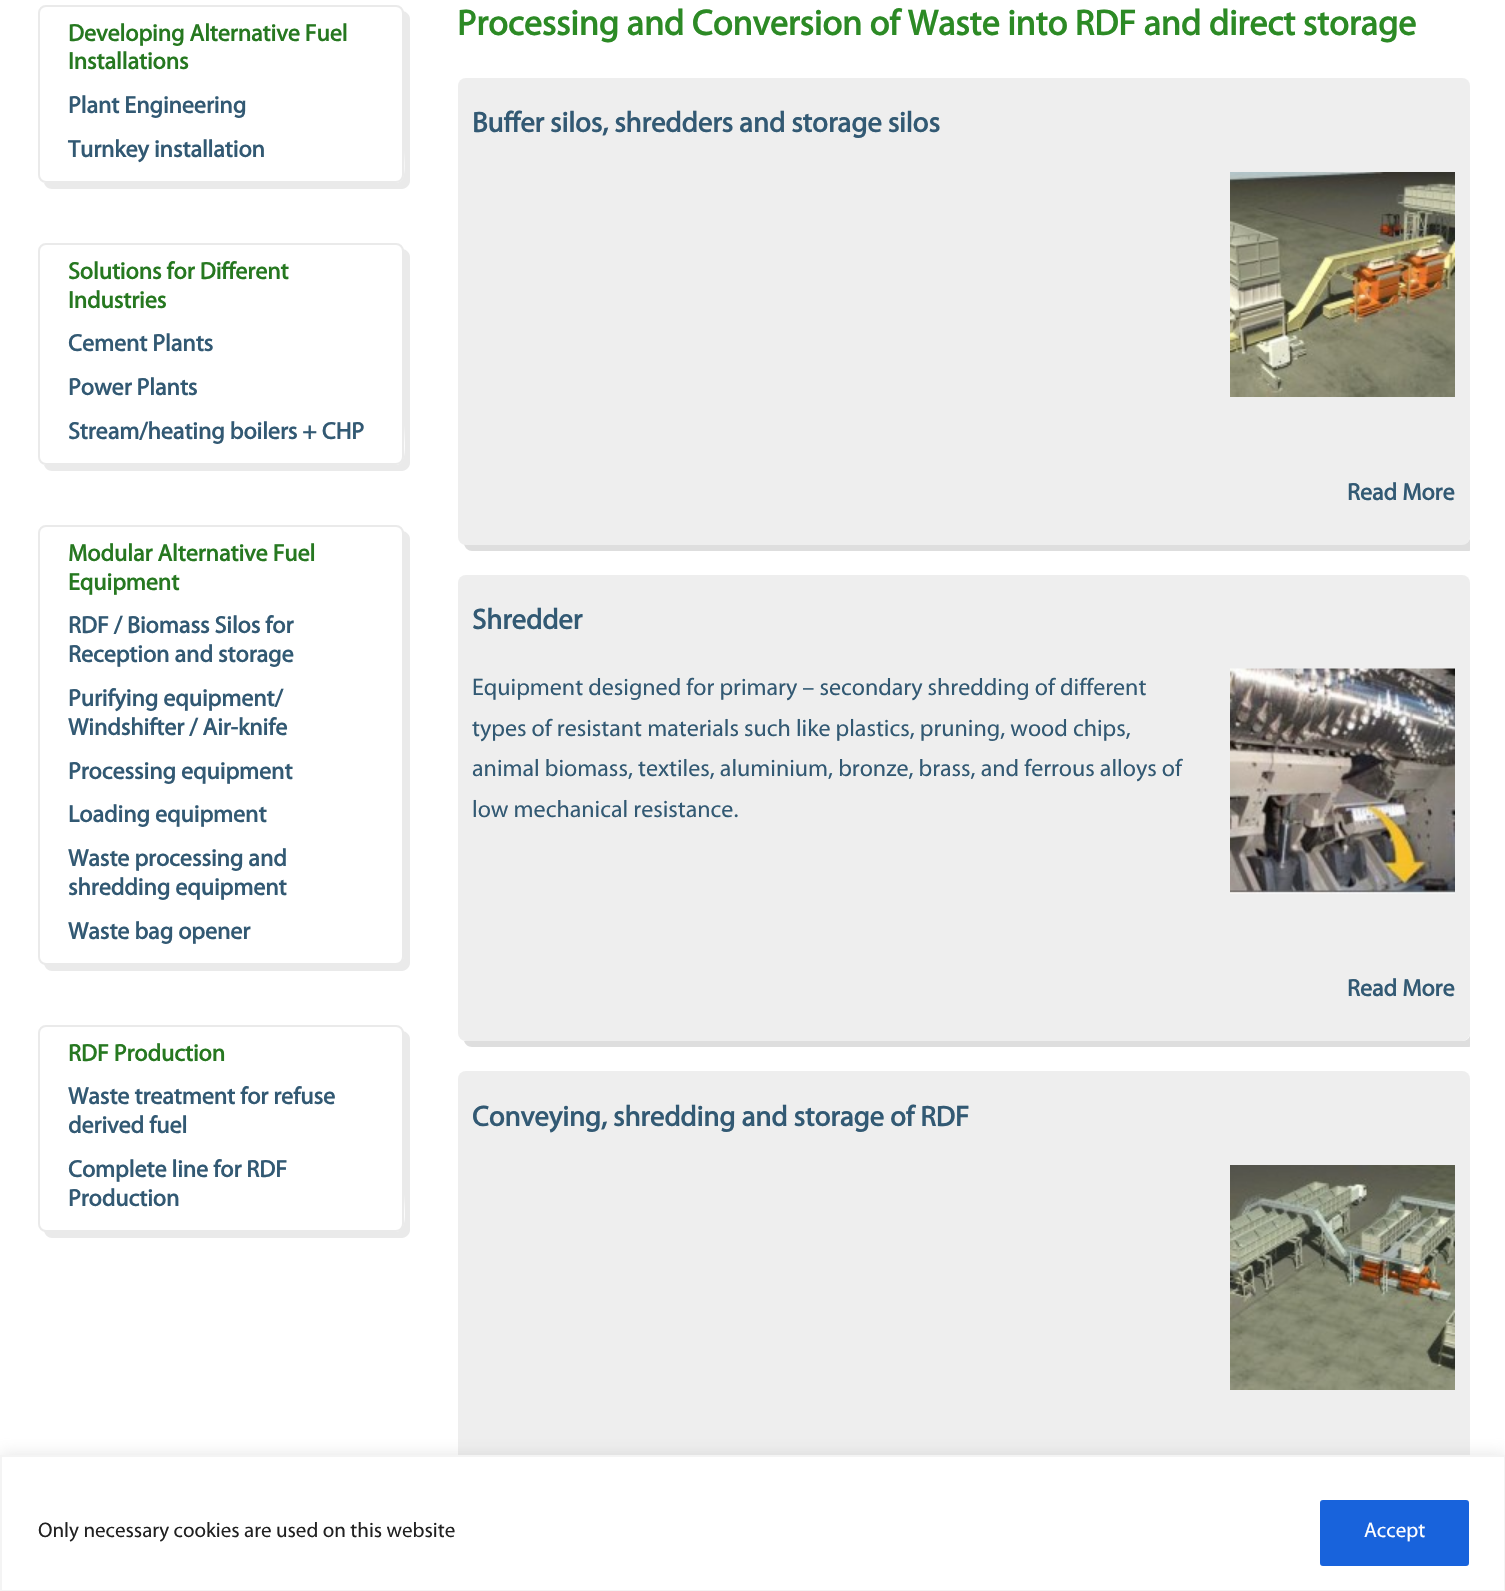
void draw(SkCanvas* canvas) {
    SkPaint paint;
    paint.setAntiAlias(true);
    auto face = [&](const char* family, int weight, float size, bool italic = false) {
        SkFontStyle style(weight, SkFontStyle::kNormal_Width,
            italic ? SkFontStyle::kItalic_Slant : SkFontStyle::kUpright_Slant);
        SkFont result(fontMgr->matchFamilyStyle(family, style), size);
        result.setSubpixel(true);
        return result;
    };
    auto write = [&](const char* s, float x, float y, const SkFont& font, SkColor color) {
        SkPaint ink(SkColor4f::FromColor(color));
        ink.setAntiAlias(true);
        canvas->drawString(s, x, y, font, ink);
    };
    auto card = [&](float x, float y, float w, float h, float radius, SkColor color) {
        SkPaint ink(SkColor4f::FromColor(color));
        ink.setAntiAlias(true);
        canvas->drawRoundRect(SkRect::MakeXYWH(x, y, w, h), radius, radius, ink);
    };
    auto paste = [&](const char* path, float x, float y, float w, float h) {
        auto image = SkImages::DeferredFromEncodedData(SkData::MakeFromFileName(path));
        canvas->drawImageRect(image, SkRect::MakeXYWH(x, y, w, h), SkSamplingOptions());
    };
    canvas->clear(SK_ColorWHITE);
    paint.setColor(SkColorSetRGB(234, 234, 234));
    canvas->drawPath(SkPathBuilder().moveTo(44, 183).cubicTo(45, 186, 48, 189, 52, 189).lineTo(402, 189).cubicTo(406, 189, 410, 185, 410, 181).lineTo(410, 19).cubicTo(410, 15, 407, 12, 403, 11).lineTo(404, 148).cubicTo(404, 162, 408, 183, 396, 183).close().detach(), paint);
    paint.setStyle(SkPaint::kStroke_Style);
    paint.setStrokeWidth(2);
    canvas->drawRoundRect(SkRect::MakeXYWH(39, 6, 364, 176), 7, 7, paint);
    auto kFont1 = face("Myriad", 700, 24);
    write("Developing Alternative Fuel", 68, 41, kFont1, SkColorSetRGB(38, 120, 32));
    write("Installations", 68, 69, kFont1, SkColorSetRGB(38, 120, 32));
    write("Plant Engineering", 68, 113, kFont1, SkColorSetRGB(50, 89, 115));
    write("Turnkey installation", 68, 157, kFont1, SkColorSetRGB(50, 89, 115));
    paint.setStyle(SkPaint::kFill_Style);
    canvas->drawPath(SkPathBuilder().moveTo(44, 465).cubicTo(45, 468, 48, 471, 52, 471).lineTo(402, 471).cubicTo(406, 471, 410, 467, 410, 463).lineTo(410, 257).cubicTo(410, 253, 407, 250, 403, 249).lineTo(404, 423).cubicTo(404, 438, 409, 465, 396, 465).close().detach(), paint);
    paint.setStyle(SkPaint::kStroke_Style);
    canvas->drawRoundRect(SkRect::MakeXYWH(39, 244, 364, 220), 7, 7, paint);
    write("Solutions for Different", 68, 279, kFont1, SkColorSetRGB(38, 120, 32));
    write("Industries", 68, 308, kFont1, SkColorSetRGB(38, 120, 32));
    write("Cement Plants", 68, 351, kFont1, SkColorSetRGB(50, 89, 115));
    write("Power Plants", 68, 395, kFont1, SkColorSetRGB(50, 89, 115));
    write("Stream/heating boilers + CHP", 68, 439, kFont1, SkColorSetRGB(50, 89, 115));
    paint.setStyle(SkPaint::kFill_Style);
    canvas->drawPath(SkPathBuilder().moveTo(44, 964).cubicTo(45, 968, 48, 971, 52, 971).lineTo(402, 971).cubicTo(406, 971, 410, 967, 410, 963).lineTo(410, 539).cubicTo(410, 535, 407, 532, 403, 531).lineTo(404, 957).cubicTo(403, 961, 400, 964, 396, 964).close().detach(), paint);
    paint.setStyle(SkPaint::kStroke_Style);
    canvas->drawRoundRect(SkRect::MakeXYWH(39, 526, 364, 438), 7, 7, paint);
    write("Modular Alternative Fuel", 68, 561, kFont1, SkColorSetRGB(38, 120, 32));
    write("Equipment", 68, 590, kFont1, SkColorSetRGB(38, 120, 32));
    write("RDF / Biomass Silos for", 68, 633, kFont1, SkColorSetRGB(50, 89, 115));
    write("Reception and storage", 68, 662, kFont1, SkColorSetRGB(50, 89, 115));
    write("Purifying equipment/", 68, 706, kFont1, SkColorSetRGB(50, 89, 115));
    write("Windshifter / Air-knife", 68, 735, kFont1, SkColorSetRGB(50, 89, 115));
    write("Processing equipment", 68, 779, kFont1, SkColorSetRGB(50, 89, 115));
    write("Loading equipment", 68, 822, kFont1, SkColorSetRGB(50, 89, 115));
    write("Waste processing and", 68, 866, kFont1, SkColorSetRGB(50, 89, 115));
    write("shredding equipment", 68, 895, kFont1, SkColorSetRGB(50, 89, 115));
    write("Waste bag opener", 68, 939, kFont1, SkColorSetRGB(50, 89, 115));
    paint.setStyle(SkPaint::kFill_Style);
    canvas->drawPath(SkPathBuilder().moveTo(44, 1231).cubicTo(45, 1235, 48, 1238, 52, 1238).lineTo(402, 1238).cubicTo(406, 1238, 410, 1234, 410, 1230).lineTo(410, 1039).cubicTo(410, 1035, 407, 1032, 403, 1031).lineTo(404, 1192).cubicTo(404, 1207, 409, 1231, 396, 1232).close().detach(), paint);
    paint.setStyle(SkPaint::kStroke_Style);
    canvas->drawRoundRect(SkRect::MakeXYWH(39, 1026, 364, 205), 7, 7, paint);
    write("RDF Production", 68, 1061, kFont1, SkColorSetRGB(38, 120, 32));
    write("Waste treatment for refuse", 68, 1104, kFont1, SkColorSetRGB(50, 89, 115));
    write("derived fuel", 68, 1133, kFont1, SkColorSetRGB(50, 89, 115));
    write("Complete line for RDF", 68, 1177, kFont1, SkColorSetRGB(50, 89, 115));
    write("Production", 68, 1206, kFont1, SkColorSetRGB(50, 89, 115));
    auto kFont2 = face("Myriad", 700, 36);
    write("Processing and Conversion of Waste into RDF and direct storage", 457, 35, kFont2, SkColorSetRGB(44, 138, 37));
    canvas->save();
    canvas->clipRect(SkRect::MakeXYWH(458, 5, 1012, 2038));
    paint.setStyle(SkPaint::kFill_Style);
    paint.setColor(SkColorSetRGB(222, 222, 222));
    canvas->drawPath(SkPathBuilder().moveTo(464, 544).cubicTo(465, 548, 468, 551, 472, 551).lineTo(1468, 551).cubicTo(1472, 551, 1476, 547, 1476, 543).lineTo(1476, 92).cubicTo(1476, 88, 1473, 85, 1470, 84).lineTo(1470, 537).cubicTo(1470, 541, 1467, 544, 1462, 544).close().detach(), paint);
    canvas->restore();
    card(458, 78, 1012, 467, 8, SkColorSetRGB(238, 238, 238));
    auto kFont3 = face("Myriad", 700, 28.75f);
    write("Buffer silos, shredders and storage silos", 472, 132, kFont3, SkColorSetRGB(50, 89, 115));
    paste("pic1.png", 1230, 172, 225, 225);
    write("Read More", 1347, 500, kFont1, SkColorSetRGB(50, 89, 115));
    canvas->save();
    canvas->clipRect(SkRect::MakeXYWH(458, 5, 1012, 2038));
    canvas->drawPath(SkPathBuilder().moveTo(464, 1041).cubicTo(465, 1044, 468, 1047, 472, 1047).lineTo(1468, 1047).cubicTo(1472, 1047, 1476, 1043, 1476, 1039).lineTo(1476, 589).cubicTo(1476, 585, 1473, 582, 1470, 581).lineTo(1470, 1034).cubicTo(1470, 1038, 1467, 1041, 1462, 1041).close().detach(), paint);
    canvas->restore();
    card(458, 575, 1012, 466, 8, SkColorSetRGB(238, 238, 238));
    write("Shredder", 472, 629, kFont3, SkColorSetRGB(50, 89, 115));
    auto kFont4 = face("Myriad", 400, 24);
    write("Equipment designed for primary – secondary shredding of different", 472, 695, kFont4, SkColorSetRGB(50, 89, 115));
    write("types of resistant materials such like plastics, pruning, wood chips,", 472, 736, kFont4, SkColorSetRGB(50, 89, 115));
    write("animal biomass, textiles, aluminium, bronze, brass, and ferrous alloys of", 472, 776, kFont4, SkColorSetRGB(50, 89, 115));
    write("low mechanical resistance.", 472, 817, kFont4, SkColorSetRGB(50, 89, 115));
    paste("pic2.png", 1230, 668, 225, 226);
    write("Read More", 1347, 996, kFont1, SkColorSetRGB(50, 89, 115));
    card(458, 1071, 1012, 468, 8, SkColorSetRGB(238, 238, 238));
    write("Conveying, shredding and storage of RDF", 472, 1126, kFont3, SkColorSetRGB(50, 89, 115));
    paste("pic3.png", 1230, 1165, 225, 225);
    paint.setColor(SkColorSetARGB(77, 172, 171, 171));
    paint.setMaskFilter(SkMaskFilter::MakeBlur(kNormal_SkBlurStyle, 7.5f));
    canvas->drawRect(SkRect::MakeXYWH(0, 1454, 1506, 136), paint);
    paint.setMaskFilter(nullptr);
    paint.setColor(SK_ColorWHITE);
    canvas->drawRect(SkRect::MakeXYWH(1, 1456, 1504, 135), paint);
    paint.setStyle(SkPaint::kStroke_Style);
    paint.setColor(SkColorSetRGB(244, 244, 244));
    canvas->drawRect(SkRect::MakeXYWH(1, 1456, 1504, 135), paint);
    auto kFont5 = face("Myriad", 400, 21);
    write("Only necessary cookies are used on this website", 38, 1537, kFont5, SkColorSetRGB(33, 33, 33));
    paint.setStyle(SkPaint::kFill_Style);
    paint.setColor(SkColorSetRGB(24, 99, 220));
    canvas->drawRoundRect(SkRect::MakeXYWH(1321.5f, 1501.5f, 146, 63), 1.5f, 1.5f, paint);
    paint.setStyle(SkPaint::kStroke_Style);
    paint.setStrokeWidth(3);
    canvas->drawRoundRect(SkRect::MakeXYWH(1321.5f, 1501.5f, 146, 63), 1.5f, 1.5f, paint);
    write("Accept", 1364, 1537, kFont5, SK_ColorWHITE);
}
